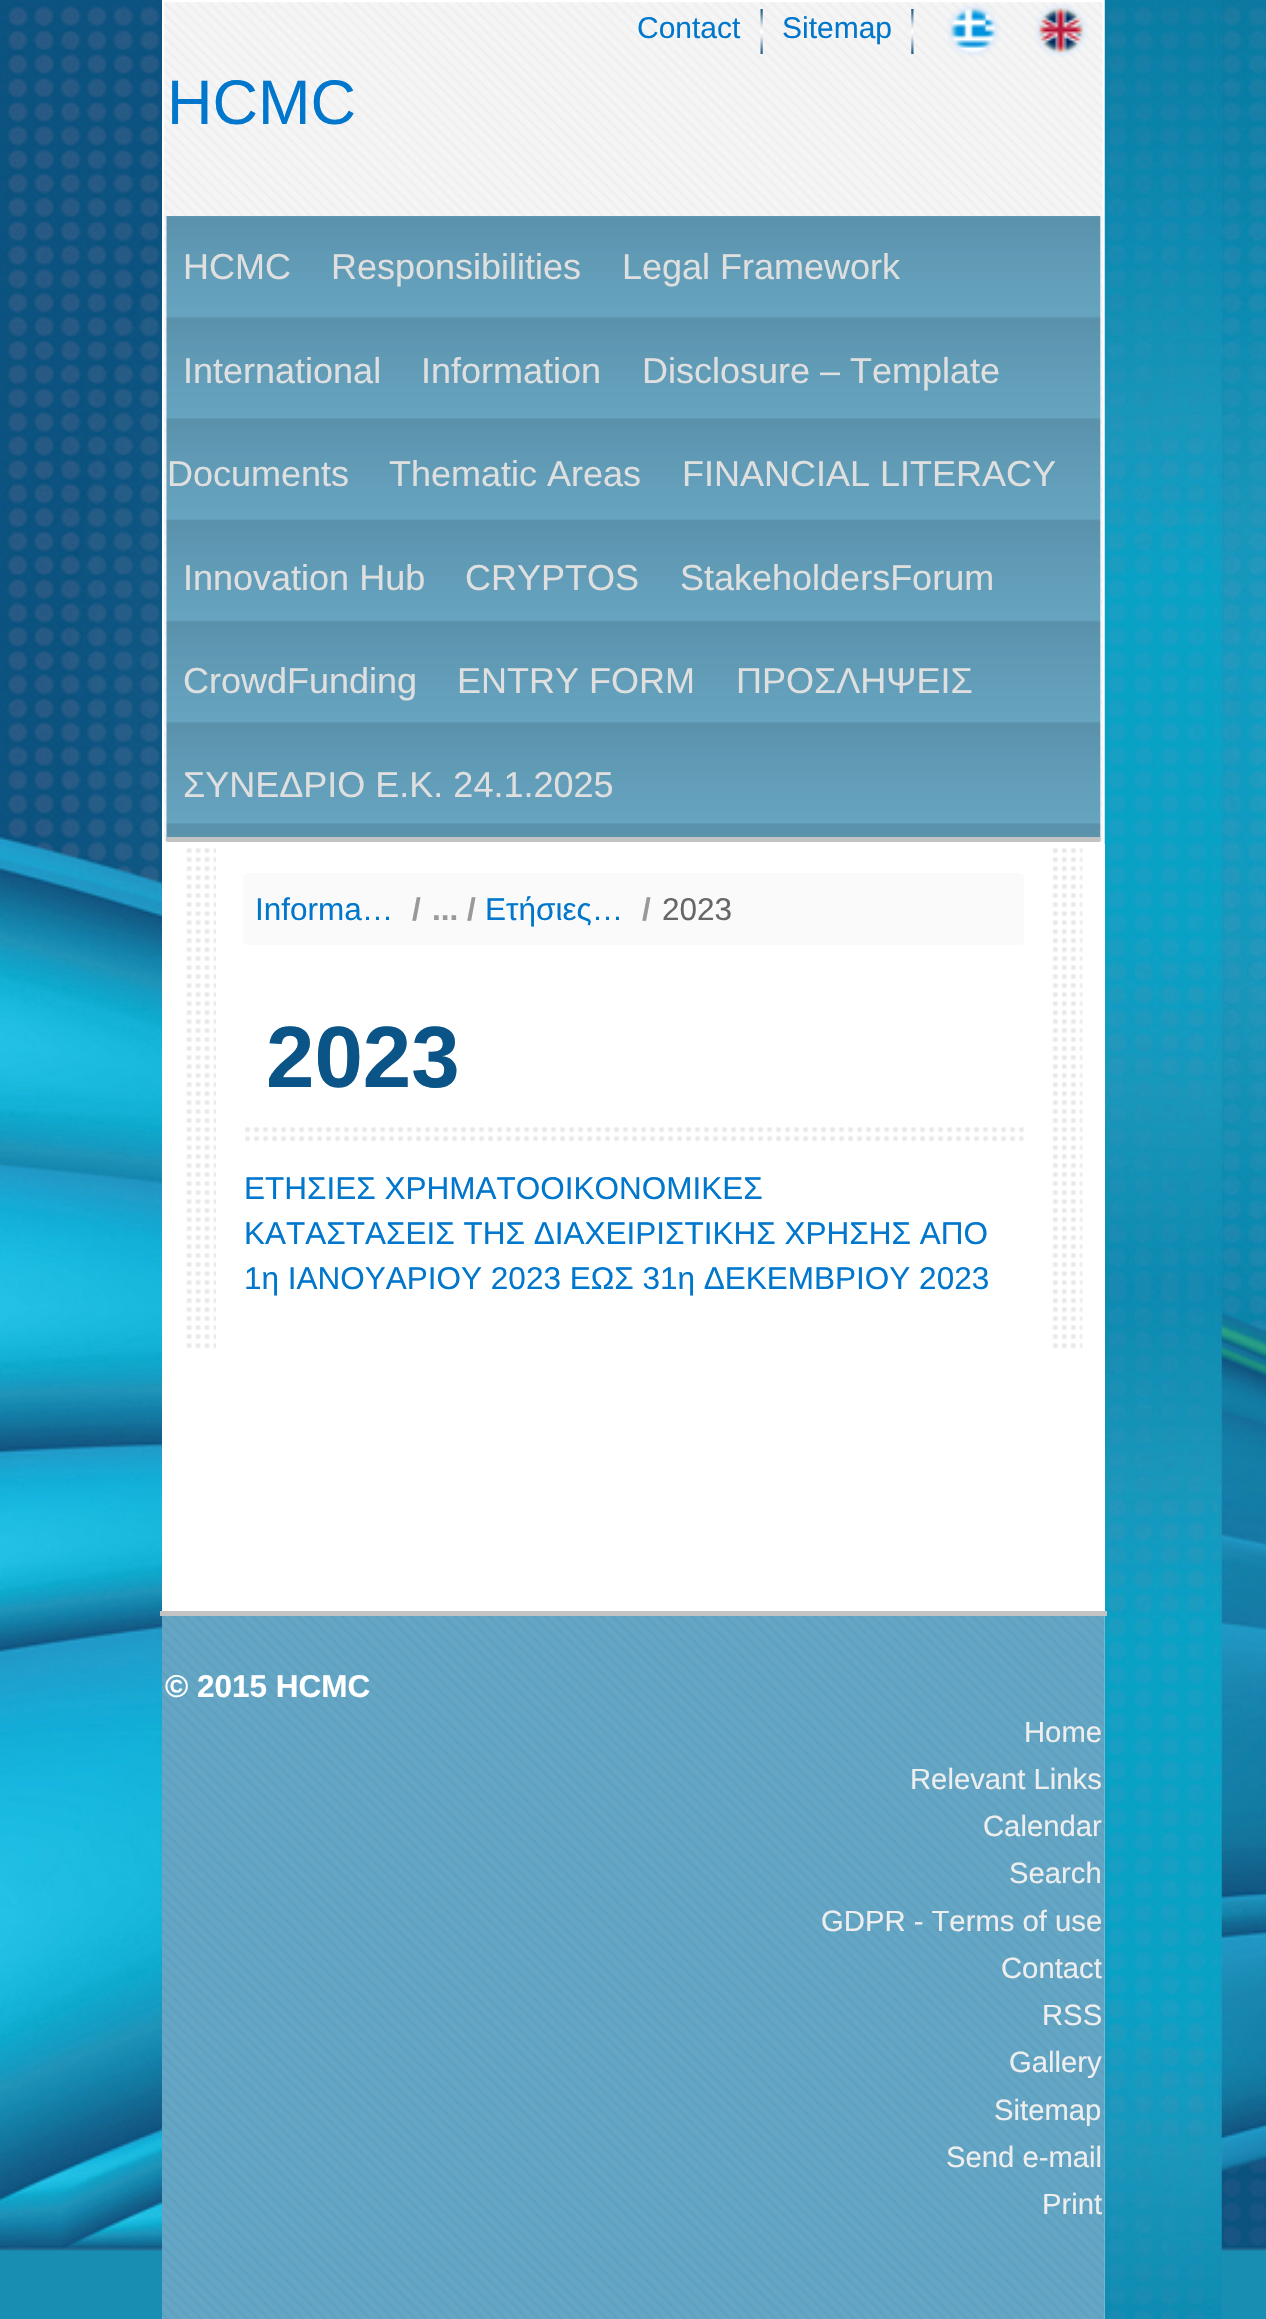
void draw(SkCanvas* canvas) {
    SkPaint paint;
    paint.setAntiAlias(true);
    auto face = [&](const char* family, int weight, float size, bool italic = false) {
        SkFontStyle style(weight, SkFontStyle::kNormal_Width,
            italic ? SkFontStyle::kItalic_Slant : SkFontStyle::kUpright_Slant);
        SkFont result(fontMgr->matchFamilyStyle(family, style), size);
        result.setSubpixel(true);
        return result;
    };
    auto write = [&](const char* s, float x, float y, const SkFont& font, SkColor color) {
        SkPaint ink(SkColor4f::FromColor(color));
        ink.setAntiAlias(true);
        canvas->drawString(s, x, y, font, ink);
    };
    auto block = [&](float x, float y, float w, float h, SkColor color) {
        SkPaint ink(SkColor4f::FromColor(color));
        ink.setAntiAlias(true);
        canvas->drawRect(SkRect::MakeXYWH(x, y, w, h), ink);
    };
    auto card = [&](float x, float y, float w, float h, float radius, SkColor color) {
        SkPaint ink(SkColor4f::FromColor(color));
        ink.setAntiAlias(true);
        canvas->drawRoundRect(SkRect::MakeXYWH(x, y, w, h), radius, radius, ink);
    };
    auto paste = [&](const char* path, float x, float y, float w, float h) {
        auto image = SkImages::DeferredFromEncodedData(SkData::MakeFromFileName(path));
        canvas->drawImageRect(image, SkRect::MakeXYWH(x, y, w, h), SkSamplingOptions());
    };
    canvas->clear(SkColorSetRGB(25, 142, 179));
    paste("pic1.png", 0, 0, 1266, 2251);
    block(162, 0, 943, 2319, SK_ColorWHITE);
    paste("pic2.png", 164, 2, 939, 840);
    auto kFont1 = face("Liberation Sans", 400, 30);
    write("Contact", 637, 38, kFont1, SkColorSetRGB(0, 119, 204));
    paste("pic3.png", 760, 9, 3, 45);
    write("Sitemap", 782, 38, kFont1, SkColorSetRGB(0, 119, 204));
    paste("pic4.png", 911, 9, 3, 45);
    paste("pic5.png", 947, 4, 53, 53);
    paste("pic6.png", 1034, 4, 54, 53);
    auto kFont2 = face("Liberation Sans", 400, 63);
    write("HCMC", 167, 124, kFont2, SkColorSetRGB(0, 119, 204));
    paste("pic7.png", 166, 216, 935, 626);
    block(167, 837, 933, 5, SkColorSetRGB(195, 195, 195));
    auto kFont3 = face("Liberation Sans", 400, 36);
    write("HCMC", 183, 279, kFont3, SkColorSetRGB(223, 223, 223));
    write("Responsibilities", 331, 279, kFont3, SkColorSetRGB(223, 223, 223));
    write("Legal Framework", 622, 279, kFont3, SkColorSetRGB(223, 223, 223));
    write("International", 183, 383, kFont3, SkColorSetRGB(223, 223, 223));
    write("Information", 421, 383, kFont3, SkColorSetRGB(223, 223, 223));
    write("Disclosure – Template", 642, 383, kFont3, SkColorSetRGB(223, 223, 223));
    write("Documents", 167, 486, kFont3, SkColorSetRGB(223, 223, 223));
    write("Thematic Areas", 389, 486, kFont3, SkColorSetRGB(223, 223, 223));
    write("FINANCIAL LITERACY", 682, 486, kFont3, SkColorSetRGB(223, 223, 223));
    write("Innovation Hub", 183, 590, kFont3, SkColorSetRGB(223, 223, 223));
    write("CRYPTOS", 465, 590, kFont3, SkColorSetRGB(223, 223, 223));
    write("StakeholdersForum", 680, 590, kFont3, SkColorSetRGB(223, 223, 223));
    write("CrowdFunding", 183, 693, kFont3, SkColorSetRGB(223, 223, 223));
    write("ENTRY FORM", 457, 693, kFont3, SkColorSetRGB(223, 223, 223));
    write("ΠΡΟΣΛΗΨΕΙΣ", 736, 693, kFont3, SkColorSetRGB(223, 223, 223));
    write("ΣΥΝΕΔΡΙΟ Ε.Κ. 24.1.2025", 183, 797, kFont3, SkColorSetRGB(223, 223, 223));
    paste("pic12.png", 1104, 0, 118, 2319);
    block(1104, 844, 1, 767, SK_ColorWHITE);
    paste("pic8.png", 186, 848, 30, 501);
    card(243, 873, 781, 72, 5, SkColorSetRGB(250, 250, 250));
    auto kFont4 = face("Liberation Sans", 400, 31.5f);
    write("Informa…", 255, 920, kFont4, SkColorSetRGB(0, 119, 204));
    auto kFont5 = face("Liberation Sans", 700, 31.5f);
    write("/", 412, 920, kFont5, SkColorSetRGB(153, 153, 153));
    write("... /", 432, 920, kFont5, SkColorSetRGB(153, 153, 153));
    write("Ετήσιες…", 485, 920, kFont4, SkColorSetRGB(0, 119, 204));
    write("/", 642, 920, kFont5, SkColorSetRGB(153, 153, 153));
    write("2023", 662, 920, kFont4, SkColorSetRGB(103, 103, 103));
    auto kFont6 = face("Liberation Sans", 700, 87);
    write("2023", 266, 1087, kFont6, SkColorSetRGB(10, 84, 135));
    paste("pic9.png", 245, 1127, 779, 15);
    write("ΕΤΗΣΙΕΣ ΧΡΗΜΑΤΟΟΙΚΟΝΟΜΙΚΕΣ", 244, 1199, kFont4, SkColorSetRGB(0, 119, 204));
    write("ΚΑΤΑΣΤΑΣΕΙΣ ΤΗΣ ΔΙΑΧΕΙΡΙΣΤΙΚΗΣ ΧΡΗΣΗΣ ΑΠΟ", 244, 1244, kFont4, SkColorSetRGB(0, 119, 204));
    write("1η ΙΑΝΟΥΑΡΙΟΥ 2023 ΕΩΣ 31η ΔΕΚΕΜΒΡΙΟΥ 2023", 244, 1289, kFont4, SkColorSetRGB(0, 119, 204));
    paste("pic10.png", 1052, 848, 31, 501);
    paste("pic11.png", 162, 1616, 943, 703);
    block(160, 1611, 947, 5, SkColorSetRGB(195, 195, 195));
    write("© 2015 HCMC", 165, 1697, kFont5, SK_ColorWHITE);
    auto kFont7 = face("Liberation Sans", 400, 29.25f);
    write("Home", 1024, 1742, kFont7, SkColorSetRGB(238, 238, 238));
    write("Relevant Links", 910, 1789, kFont7, SkColorSetRGB(238, 238, 238));
    write("Calendar", 983, 1836, kFont7, SkColorSetRGB(238, 238, 238));
    write("Search", 1009, 1883, kFont7, SkColorSetRGB(238, 238, 238));
    write("GDPR - Terms of use", 821, 1931, kFont7, SkColorSetRGB(238, 238, 238));
    write("Contact", 1001, 1978, kFont7, SkColorSetRGB(238, 238, 238));
    write("RSS", 1042, 2025, kFont7, SkColorSetRGB(238, 238, 238));
    write("Gallery", 1009, 2072, kFont7, SkColorSetRGB(238, 238, 238));
    write("Sitemap", 994, 2120, kFont7, SkColorSetRGB(238, 238, 238));
    write("Send e-mail", 946, 2167, kFont7, SkColorSetRGB(238, 238, 238));
    write("Print", 1042, 2214, kFont7, SkColorSetRGB(238, 238, 238));
}
